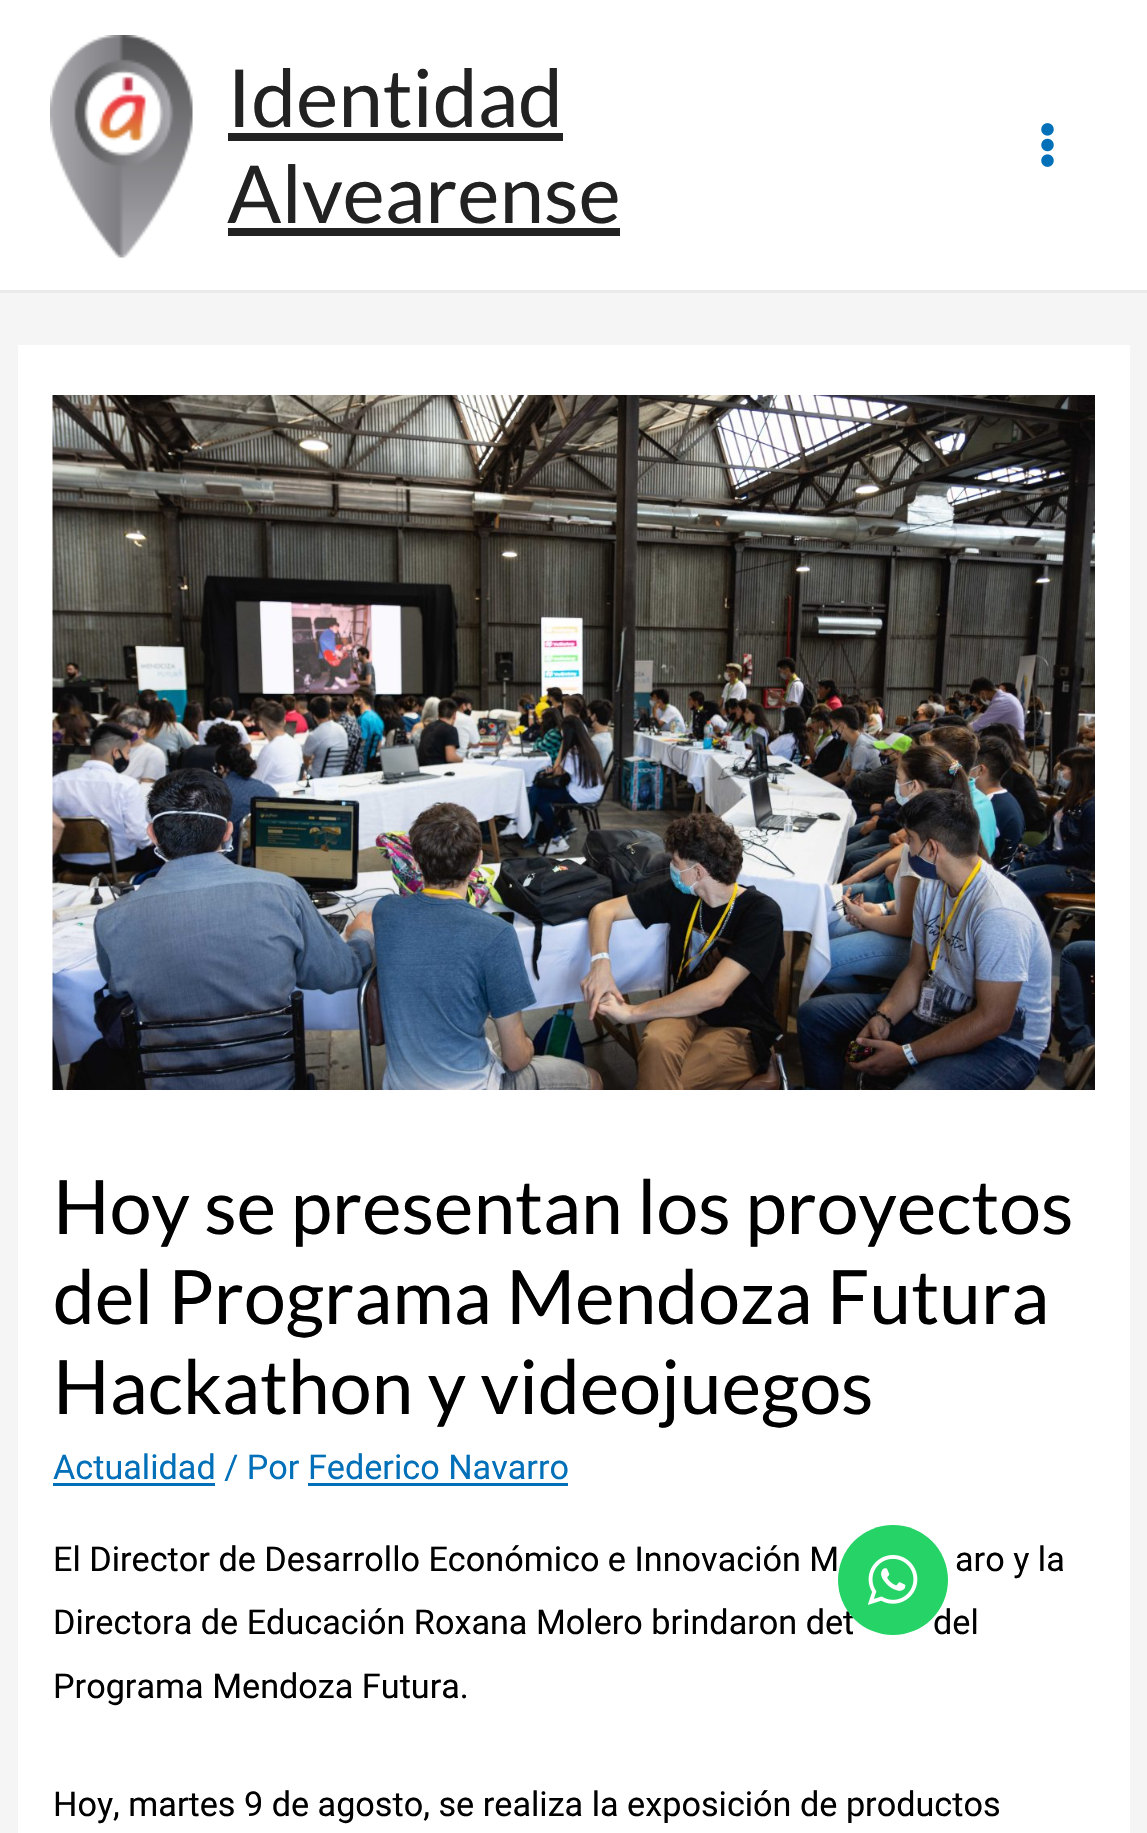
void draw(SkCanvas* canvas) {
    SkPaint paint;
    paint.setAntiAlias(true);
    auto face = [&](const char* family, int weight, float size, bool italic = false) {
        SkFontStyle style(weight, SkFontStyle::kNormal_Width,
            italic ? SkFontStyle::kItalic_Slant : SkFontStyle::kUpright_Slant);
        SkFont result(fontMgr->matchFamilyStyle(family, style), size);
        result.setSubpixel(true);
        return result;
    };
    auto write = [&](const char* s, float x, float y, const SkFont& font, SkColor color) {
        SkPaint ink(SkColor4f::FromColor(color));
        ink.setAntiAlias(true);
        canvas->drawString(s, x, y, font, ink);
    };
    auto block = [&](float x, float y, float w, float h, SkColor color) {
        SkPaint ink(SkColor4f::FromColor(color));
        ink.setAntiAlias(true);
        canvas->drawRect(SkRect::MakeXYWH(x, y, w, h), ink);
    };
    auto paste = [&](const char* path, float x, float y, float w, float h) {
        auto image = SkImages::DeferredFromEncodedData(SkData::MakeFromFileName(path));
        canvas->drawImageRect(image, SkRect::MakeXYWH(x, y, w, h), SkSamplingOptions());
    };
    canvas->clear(SkColorSetRGB(245, 245, 245));
    block(0, 0, 1147, 290, SK_ColorWHITE);
    block(0, 290, 1147, 3, SkColorSetRGB(234, 234, 234));
    paste("pic1.png", 50, 35, 143, 223);
    auto kFont1 = face("Lato", 400, 80);
    write("Identidad", 227, 127, kFont1, SkColorSetRGB(34, 34, 34));
    block(228, 133, 335, 8, SkColorSetRGB(34, 34, 34));
    write("Alvearense", 227, 223, kFont1, SkColorSetRGB(34, 34, 34));
    block(228, 228, 392, 8, SkColorSetRGB(34, 34, 34));
    paste("pic2.png", 1041, 123, 13, 44);
    block(18, 345, 1112, 1488, SK_ColorWHITE);
    paste("pic3.png", 52, 395, 1043, 695);
    auto kFont2 = face("Lato", 400, 75);
    write("Hoy se presentan los proyectos", 53, 1234, kFont2, SK_ColorBLACK);
    write("del Programa Mendoza Futura", 53, 1324, kFont2, SK_ColorBLACK);
    write("Hackathon y videojuegos", 53, 1414, kFont2, SK_ColorBLACK);
    auto kFont3 = face("Roboto", 400, 34.2f);
    write("Actualidad / Por Federico Navarro", 53, 1479, kFont3, SkColorSetRGB(1, 112, 185));
    block(53, 1483, 162, 3, SkColorSetRGB(1, 112, 185));
    block(308, 1483, 260, 3, SkColorSetRGB(1, 112, 185));
    write("El Director de Desarrollo Económico e Innovación M", 53, 1571, kFont3, SK_ColorBLACK);
    write("aro y la", 955, 1571, kFont3, SK_ColorBLACK);
    write("Directora de Educación Roxana Molero brindaron det", 53, 1634, kFont3, SK_ColorBLACK);
    write("del", 933, 1634, kFont3, SK_ColorBLACK);
    write("Programa Mendoza Futura.", 53, 1698, kFont3, SK_ColorBLACK);
    write("Hoy, martes 9 de agosto, se realiza la exposición de productos", 53, 1816, kFont3, SK_ColorBLACK);
    paint.setColor(SkColorSetRGB(37, 211, 102));
    canvas->drawCircle(893, 1580, 55, paint);
    paste("pic4.png", 868, 1555, 50, 50);
}
